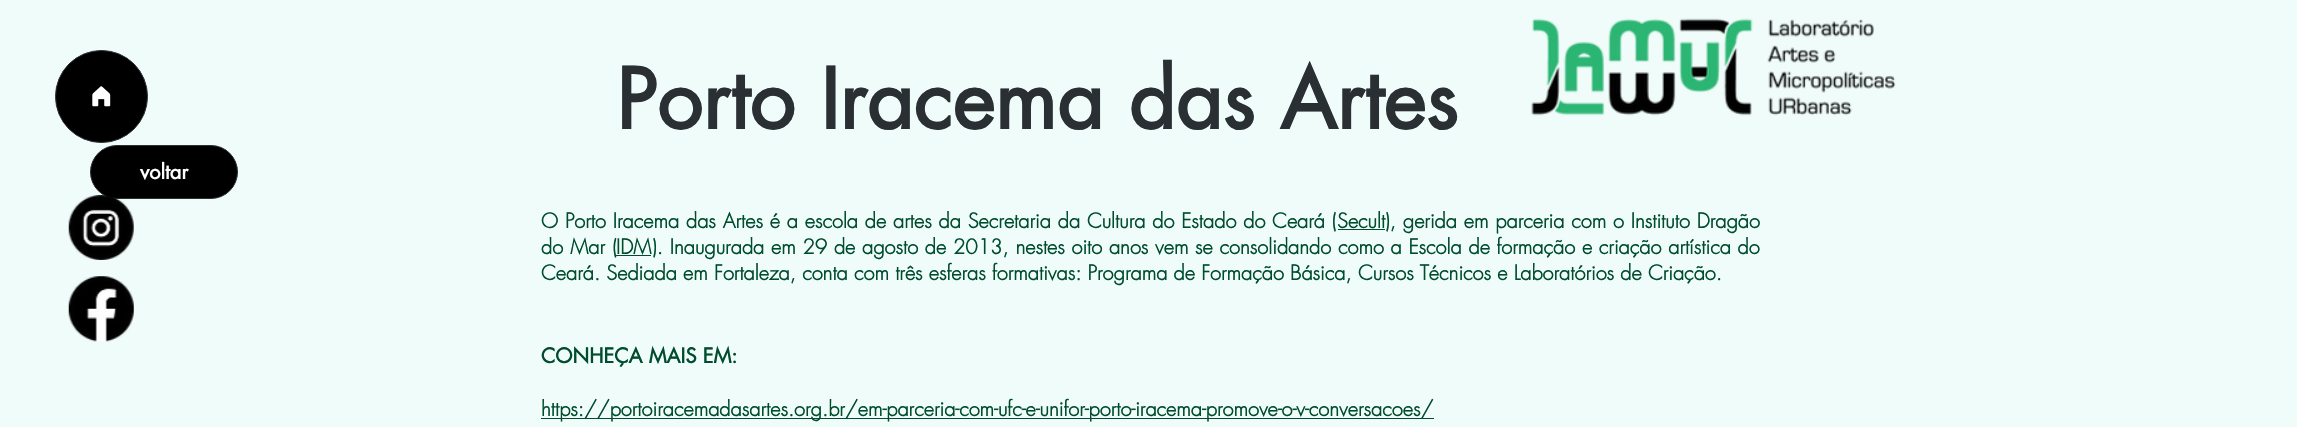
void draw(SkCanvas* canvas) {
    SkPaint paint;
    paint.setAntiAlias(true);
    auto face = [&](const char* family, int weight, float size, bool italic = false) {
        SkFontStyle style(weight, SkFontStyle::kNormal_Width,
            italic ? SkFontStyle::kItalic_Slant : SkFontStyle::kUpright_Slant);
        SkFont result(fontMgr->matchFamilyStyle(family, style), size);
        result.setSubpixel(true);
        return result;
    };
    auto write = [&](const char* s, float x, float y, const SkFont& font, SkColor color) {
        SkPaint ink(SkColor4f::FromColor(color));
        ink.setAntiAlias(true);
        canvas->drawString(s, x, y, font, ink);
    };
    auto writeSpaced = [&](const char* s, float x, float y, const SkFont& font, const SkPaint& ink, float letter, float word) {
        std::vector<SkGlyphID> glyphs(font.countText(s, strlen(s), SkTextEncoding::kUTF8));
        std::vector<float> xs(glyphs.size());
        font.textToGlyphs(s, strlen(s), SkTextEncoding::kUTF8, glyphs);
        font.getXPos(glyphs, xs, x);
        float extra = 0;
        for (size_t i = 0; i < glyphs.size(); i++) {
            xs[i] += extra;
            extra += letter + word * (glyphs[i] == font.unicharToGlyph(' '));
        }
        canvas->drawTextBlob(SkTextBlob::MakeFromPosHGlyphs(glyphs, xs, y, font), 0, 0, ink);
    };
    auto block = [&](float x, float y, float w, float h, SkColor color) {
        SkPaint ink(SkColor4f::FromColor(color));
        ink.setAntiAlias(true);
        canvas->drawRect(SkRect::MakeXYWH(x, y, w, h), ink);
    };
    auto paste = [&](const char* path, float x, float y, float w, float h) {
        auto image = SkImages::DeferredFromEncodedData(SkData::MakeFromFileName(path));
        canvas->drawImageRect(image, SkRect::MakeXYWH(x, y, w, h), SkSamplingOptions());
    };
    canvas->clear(SkColorSetRGB(240, 252, 250));
    paint.setColor(SK_ColorBLACK);
    canvas->drawCircle(101.5f, 96.5f, 46, paint);
    paint.setStyle(SkPaint::kStroke_Style);
    paint.setStrokeWidth(1);
    paint.setColor(SkColorSetRGB(41, 47, 51));
    canvas->drawCircle(101.5f, 96.5f, 46, paint);
    paste("pic1.png", 92, 86, 19, 21);
    auto kFont1 = face("futura", 700, 81.25f);
    write("Porto Iracema das Artes", 616, 129, kFont1, SkColorSetRGB(41, 47, 51));
    paste("pic2.png", 1531, 18, 365, 98);
    paint.setStyle(SkPaint::kFill_Style);
    paint.setColor(SK_ColorBLACK);
    canvas->drawRoundRect(SkRect::MakeXYWH(90.5f, 145.5f, 147, 53), 26.5f, 26.5f, paint);
    paint.setStyle(SkPaint::kStroke_Style);
    paint.setColor(SkColorSetRGB(41, 47, 51));
    canvas->drawRoundRect(SkRect::MakeXYWH(90.5f, 145.5f, 147, 53), 26.5f, 26.5f, paint);
    auto kFont2 = face("futura", 700, 20);
    write("voltar", 140, 179, kFont2, SK_ColorWHITE);
    auto kFont3 = face("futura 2", 700, 20);
    paint.setStyle(SkPaint::kFill_Style);
    paint.setColor(SkColorSetRGB(0, 77, 46));
    writeSpaced("O Porto Iracema das Artes é a escola de artes da Secretaria da Cultura do Estado do Ceará (", 541, 228, kFont3, paint, 0, 0.6f);
    write("Secult", 1337, 228, kFont3, SkColorSetRGB(0, 77, 46));
    writeSpaced("), gerida em parceria com o Instituto Dragão", 1385, 228, kFont3, paint, 0, 0.6f);
    block(1338, 229, 47, 1, SkColorSetRGB(0, 77, 46));
    writeSpaced("do Mar (", 541, 254, kFont3, paint, 0, 1);
    write("IDM", 616, 254, kFont3, SkColorSetRGB(0, 77, 46));
    writeSpaced("). Inaugurada em 29 de agosto de 2013, nestes oito anos vem se consolidando como a Escola de formação e criação artística do", 652, 254, kFont3, paint, 0, 0.5f);
    block(616, 255, 35, 1, SkColorSetRGB(0, 77, 46));
    write("Ceará. Sediada em Fortaleza, conta com três esferas formativas: Programa de Formação Básica, Cursos Técnicos e Laboratórios de Criação.", 541, 280, kFont3, SkColorSetRGB(0, 77, 46));
    write("CONHEÇA MAIS EM:", 541, 363, kFont2, SkColorSetRGB(0, 77, 46));
    block(541, 418, 893, 1, SkColorSetRGB(0, 77, 46));
    write("https://portoiracemadasartes.org.br/em-parceria-com-ufc-e-unifor-porto-iracema-promove-o-v-conversacoes/", 541, 416, kFont3, SkColorSetRGB(0, 77, 46));
    paste("pic3.png", 68, 195, 66, 65);
    paste("pic4.png", 68, 276, 66, 66);
}
